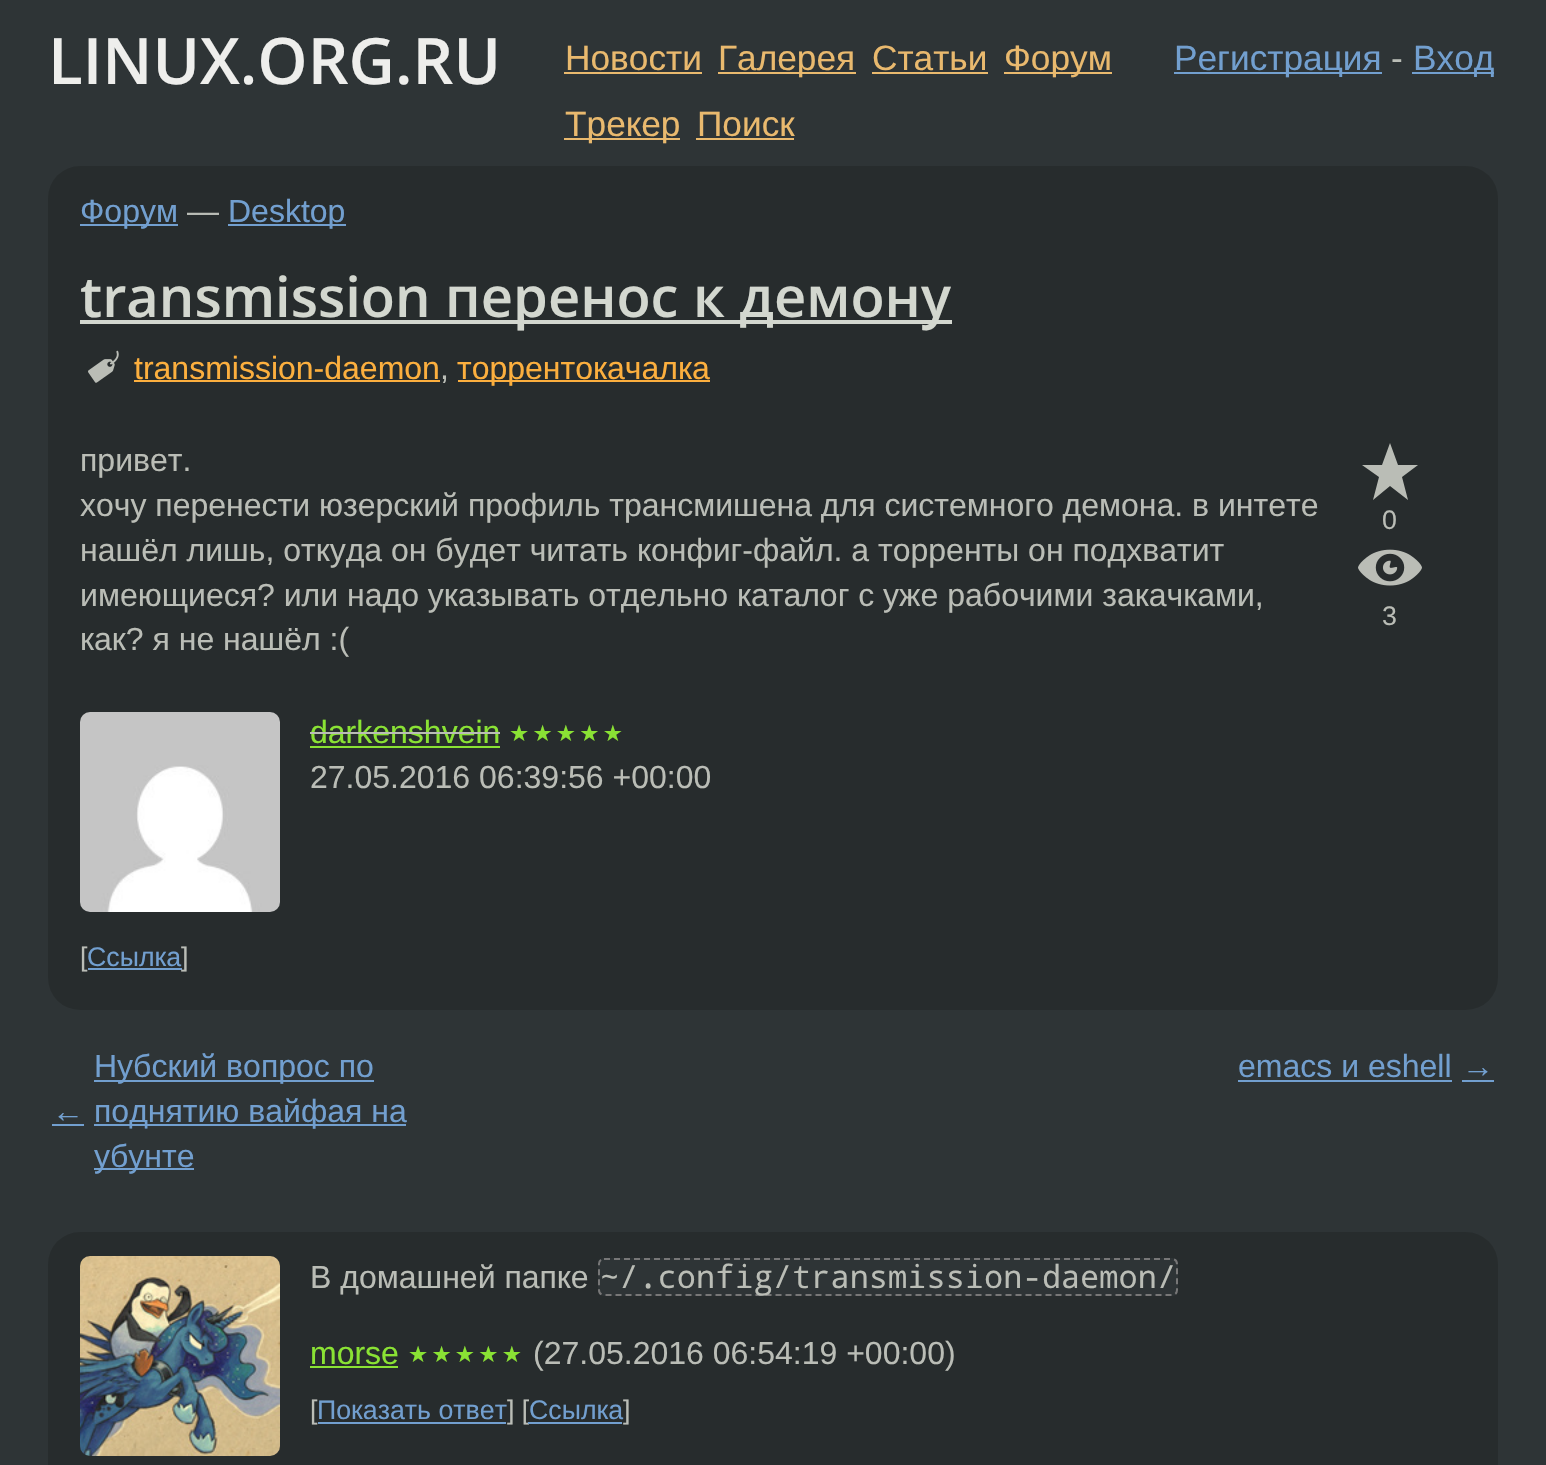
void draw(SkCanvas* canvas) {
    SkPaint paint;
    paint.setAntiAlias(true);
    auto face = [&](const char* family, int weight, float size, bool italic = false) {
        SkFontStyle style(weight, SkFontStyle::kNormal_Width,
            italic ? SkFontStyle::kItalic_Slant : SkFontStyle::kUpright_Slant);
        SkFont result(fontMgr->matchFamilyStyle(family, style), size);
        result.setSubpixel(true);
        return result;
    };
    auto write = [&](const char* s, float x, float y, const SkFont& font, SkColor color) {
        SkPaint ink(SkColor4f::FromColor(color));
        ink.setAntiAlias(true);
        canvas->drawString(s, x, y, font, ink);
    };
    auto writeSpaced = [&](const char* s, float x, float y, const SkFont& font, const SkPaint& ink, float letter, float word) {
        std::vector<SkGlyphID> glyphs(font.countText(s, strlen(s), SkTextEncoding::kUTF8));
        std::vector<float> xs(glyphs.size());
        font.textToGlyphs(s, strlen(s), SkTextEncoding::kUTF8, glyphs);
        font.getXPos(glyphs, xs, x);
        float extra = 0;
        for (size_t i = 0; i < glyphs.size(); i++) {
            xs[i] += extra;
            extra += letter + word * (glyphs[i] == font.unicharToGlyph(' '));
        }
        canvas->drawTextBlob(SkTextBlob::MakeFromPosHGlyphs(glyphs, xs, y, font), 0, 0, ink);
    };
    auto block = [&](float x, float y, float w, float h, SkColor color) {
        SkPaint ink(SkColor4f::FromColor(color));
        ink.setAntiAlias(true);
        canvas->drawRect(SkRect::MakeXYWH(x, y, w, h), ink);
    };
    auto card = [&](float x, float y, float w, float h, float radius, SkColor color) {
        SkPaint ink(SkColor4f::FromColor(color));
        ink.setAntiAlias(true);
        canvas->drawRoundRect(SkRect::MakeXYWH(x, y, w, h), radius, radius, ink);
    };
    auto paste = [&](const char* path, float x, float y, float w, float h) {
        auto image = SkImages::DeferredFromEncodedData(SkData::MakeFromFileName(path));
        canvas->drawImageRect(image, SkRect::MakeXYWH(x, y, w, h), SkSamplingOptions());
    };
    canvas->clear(SkColorSetRGB(46, 52, 54));
    auto kFont1 = face("Open Sans", 600, 64);
    write("LINUX.ORG.RU", 48, 84, kFont1, SkColorSetRGB(238, 238, 236));
    auto kFont2 = face("Liberation Sans", 400, 35.25f);
    write("Новости", 565, 70, kFont2, SkColorSetRGB(233, 185, 110));
    block(564, 72, 138, 2, SkColorSetRGB(233, 185, 110));
    block(718, 72, 138, 2, SkColorSetRGB(233, 185, 110));
    write("Галерея", 718, 70, kFont2, SkColorSetRGB(233, 185, 110));
    write("Статьи", 872, 70, kFont2, SkColorSetRGB(233, 185, 110));
    block(872, 72, 116, 2, SkColorSetRGB(233, 185, 110));
    block(1004, 72, 108, 2, SkColorSetRGB(233, 185, 110));
    write("Форум", 1004, 70, kFont2, SkColorSetRGB(233, 185, 110));
    block(564, 138, 116, 2, SkColorSetRGB(233, 185, 110));
    write("Трекер", 565, 136, kFont2, SkColorSetRGB(233, 185, 110));
    write("Поиск", 697, 136, kFont2, SkColorSetRGB(233, 185, 110));
    block(696, 138, 98, 2, SkColorSetRGB(233, 185, 110));
    block(1174, 72, 208, 2, SkColorSetRGB(114, 159, 207));
    write("Регистрация", 1174, 70, kFont2, SkColorSetRGB(114, 159, 207));
    write("-", 1391, 70, kFont2, SkColorSetRGB(186, 189, 182));
    block(1412, 72, 82, 2, SkColorSetRGB(114, 159, 207));
    write("Вход", 1413, 70, kFont2, SkColorSetRGB(114, 159, 207));
    card(48, 166, 1450, 844, 32, SkColorSetRGB(39, 44, 45));
    block(80, 224, 98, 2, SkColorSetRGB(114, 159, 207));
    auto kFont3 = face("Liberation Sans", 400, 32);
    write("Форум", 80, 222, kFont3, SkColorSetRGB(114, 159, 207));
    write("—", 187, 222, kFont3, SkColorSetRGB(186, 189, 182));
    block(228, 224, 118, 2, SkColorSetRGB(114, 159, 207));
    write("Desktop", 228, 222, kFont3, SkColorSetRGB(114, 159, 207));
    block(80, 320, 872, 4, SkColorSetRGB(211, 215, 207));
    auto kFont4 = face("Open Sans", 600, 56);
    write("transmission перенос к демону", 80, 317, kFont4, SkColorSetRGB(211, 215, 207));
    paste("pic1.png", 88, 350, 31, 33);
    write("transmission-daemon", 134, 379, kFont3, SkColorSetRGB(252, 175, 62));
    block(134, 380, 306, 2, SkColorSetRGB(252, 175, 62));
    write(",", 440, 379, kFont3, SkColorSetRGB(186, 189, 182));
    block(458, 380, 252, 2, SkColorSetRGB(252, 175, 62));
    write("торрентокачалка", 457, 379, kFont3, SkColorSetRGB(252, 175, 62));
    write("привет.", 80, 471, kFont3, SkColorSetRGB(186, 189, 182));
    write("хочу перенести юзерский профиль трансмишена для системного демона. в интете", 80, 516, kFont3, SkColorSetRGB(186, 189, 182));
    write("нашёл лишь, откуда он будет читать конфиг-файл. а торренты он подхватит", 80, 561, kFont3, SkColorSetRGB(186, 189, 182));
    write("имеющиеся? или надо указывать отдельно каталог с уже рабочими закачками,", 80, 606, kFont3, SkColorSetRGB(186, 189, 182));
    write("как? я не нашёл :(", 80, 650, kFont3, SkColorSetRGB(186, 189, 182));
    paint.setColor(SkColorSetRGB(186, 189, 182));
    canvas->drawPath(SkPathBuilder().moveTo(1390, 443).lineTo(1398, 465).lineTo(1418, 465).lineTo(1402, 477).lineTo(1408, 500).lineTo(1390, 486).lineTo(1373, 500).lineTo(1379, 477).lineTo(1362, 465).lineTo(1382, 465).close().detach(), paint);
    auto kFont5 = face("Liberation Sans", 400, 26.75f);
    write("0", 1382, 529, kFont5, SkColorSetRGB(186, 189, 182));
    paste("pic2.png", 1358, 549, 64, 37);
    write("3", 1382, 625, kFont5, SkColorSetRGB(186, 189, 182));
    paste("pic3.png", 80, 712, 200, 200);
    write("darkenshvein", 310, 743, kFont3, SkColorSetRGB(138, 226, 52));
    block(310, 746, 190, 2, SkColorSetRGB(138, 226, 52));
    block(310, 732, 190, 2, SkColorSetRGB(186, 189, 182));
    auto kFont6 = face("DejaVu Sans", 400, 22.5f);
    paint.setColor(SkColorSetRGB(138, 226, 52));
    writeSpaced("★★★★★", 509, 741, kFont6, paint, 3.25f, 0);
    write("27.05.2016 06:39:56 +00:00", 310, 788, kFont3, SkColorSetRGB(186, 189, 182));
    write("[", 80, 966, kFont5, SkColorSetRGB(186, 189, 182));
    block(88, 968, 94, 2, SkColorSetRGB(114, 159, 207));
    write("Ссылка", 87, 966, kFont5, SkColorSetRGB(114, 159, 207));
    write("]", 181, 966, kFont5, SkColorSetRGB(186, 189, 182));
    write("←", 52, 1122, kFont3, SkColorSetRGB(114, 159, 207));
    block(52, 1124, 32, 2, SkColorSetRGB(114, 159, 207));
    block(94, 1080, 280, 2, SkColorSetRGB(114, 159, 207));
    write("Нубский вопрос по", 94, 1077, kFont3, SkColorSetRGB(114, 159, 207));
    block(94, 1124, 312, 2, SkColorSetRGB(114, 159, 207));
    write("поднятию вайфая на", 94, 1122, kFont3, SkColorSetRGB(114, 159, 207));
    block(94, 1168, 100, 2, SkColorSetRGB(114, 159, 207));
    write("убунте", 94, 1167, kFont3, SkColorSetRGB(114, 159, 207));
    write("emacs и eshell", 1238, 1077, kFont3, SkColorSetRGB(114, 159, 207));
    block(1238, 1080, 214, 2, SkColorSetRGB(114, 159, 207));
    write("→", 1462, 1077, kFont3, SkColorSetRGB(114, 159, 207));
    block(1462, 1080, 32, 2, SkColorSetRGB(114, 159, 207));
    card(48, 1232, 1450, 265, 32, SkColorSetRGB(39, 44, 45));
    paste("pic4.png", 80, 1256, 200, 200);
    write("В домашней папке", 310, 1288, kFont3, SkColorSetRGB(186, 189, 182));
    card(598, 1258, 580, 38, 6, SkColorSetRGB(46, 52, 54));
    paint.setStyle(SkPaint::kStroke_Style);
    paint.setStrokeWidth(2);
    paint.setColor(SkColorSetRGB(119, 119, 119));
    paint.setPathEffect(SkDashPathEffect::Make({{6, 4}}, 0));
    canvas->drawPath(SkPathBuilder().moveTo(604, 1259).lineTo(1172, 1259).cubicTo(1175, 1259, 1177, 1261, 1177, 1264).lineTo(1177, 1290).cubicTo(1177, 1293, 1175, 1295, 1172, 1295).lineTo(604, 1295).cubicTo(601, 1295, 599, 1293, 599, 1290).lineTo(599, 1264).cubicTo(599, 1261, 601, 1259, 604, 1259).close().detach(), paint);
    paint.setPathEffect(nullptr);
    auto kFont7 = face("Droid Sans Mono", 400, 32);
    write("~/.config/transmission-daemon/", 600, 1288, kFont7, SkColorSetRGB(186, 189, 182));
    write("morse", 310, 1364, kFont3, SkColorSetRGB(138, 226, 52));
    block(310, 1366, 88, 2, SkColorSetRGB(138, 226, 52));
    paint.setStyle(SkPaint::kFill_Style);
    paint.setColor(SkColorSetRGB(138, 226, 52));
    writeSpaced("★★★★★", 408, 1362, kFont6, paint, 3.25f, 0);
    write("(27.05.2016 06:54:19 +00:00)", 533, 1364, kFont3, SkColorSetRGB(186, 189, 182));
    write("[", 310, 1419, kFont5, SkColorSetRGB(186, 189, 182));
    block(318, 1422, 188, 2, SkColorSetRGB(114, 159, 207));
    write("Показать ответ", 317, 1419, kFont5, SkColorSetRGB(114, 159, 207));
    write("] [", 507, 1419, kFont5, SkColorSetRGB(186, 189, 182));
    block(528, 1422, 94, 2, SkColorSetRGB(114, 159, 207));
    write("Ссылка", 529, 1419, kFont5, SkColorSetRGB(114, 159, 207));
    write("]", 623, 1419, kFont5, SkColorSetRGB(186, 189, 182));
}
